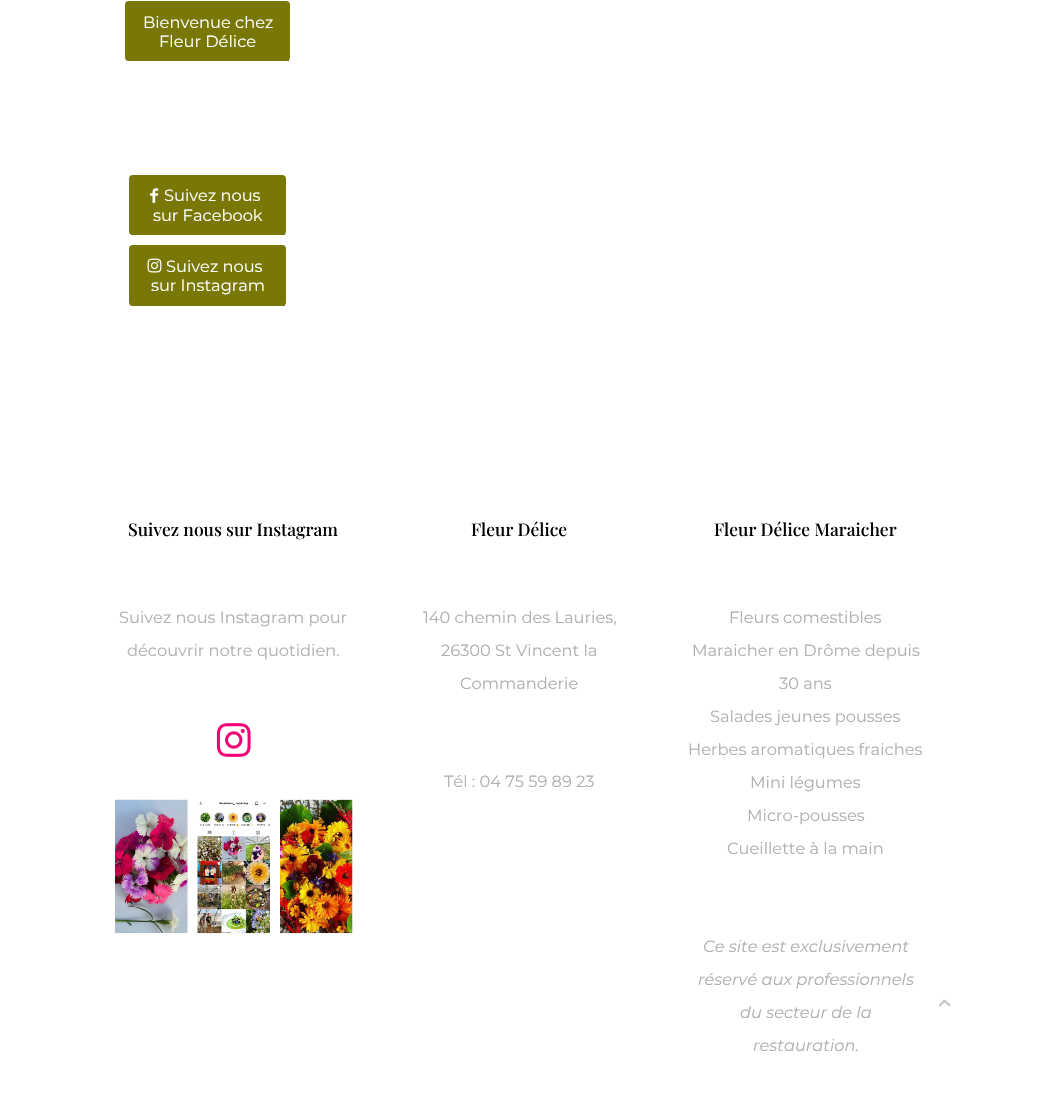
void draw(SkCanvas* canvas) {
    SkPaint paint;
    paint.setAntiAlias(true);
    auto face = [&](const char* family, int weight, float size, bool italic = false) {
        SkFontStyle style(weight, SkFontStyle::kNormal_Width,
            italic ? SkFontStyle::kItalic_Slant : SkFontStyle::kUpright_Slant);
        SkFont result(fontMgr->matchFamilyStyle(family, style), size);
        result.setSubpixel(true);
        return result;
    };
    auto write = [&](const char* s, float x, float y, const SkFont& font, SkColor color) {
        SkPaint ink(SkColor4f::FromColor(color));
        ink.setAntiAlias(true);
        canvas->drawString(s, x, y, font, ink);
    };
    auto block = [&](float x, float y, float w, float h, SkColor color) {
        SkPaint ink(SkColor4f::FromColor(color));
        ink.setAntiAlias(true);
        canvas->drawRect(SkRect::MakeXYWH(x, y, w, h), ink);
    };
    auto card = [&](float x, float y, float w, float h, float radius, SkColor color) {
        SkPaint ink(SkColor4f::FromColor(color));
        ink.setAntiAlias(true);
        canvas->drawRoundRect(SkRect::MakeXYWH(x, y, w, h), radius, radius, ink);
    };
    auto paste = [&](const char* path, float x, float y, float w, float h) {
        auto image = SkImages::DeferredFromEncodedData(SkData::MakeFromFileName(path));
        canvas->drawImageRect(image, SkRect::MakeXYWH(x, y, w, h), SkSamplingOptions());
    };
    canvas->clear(SK_ColorWHITE);
    card(125, 1, 165, 60, 4, SkColorSetRGB(121, 119, 5));
    block(128, 60, 161, 1, SkColorSetRGB(121, 119, 5));
    auto kFont1 = face("Montserrat", 400, 16.25f);
    write("Bienvenue chez", 143, 28, kFont1, SK_ColorWHITE);
    write("Fleur Délice", 159, 47, kFont1, SK_ColorWHITE);
    card(129, 175, 157, 60, 4, SkColorSetRGB(121, 119, 5));
    block(131, 234, 154, 1, SkColorSetRGB(121, 119, 5));
    paste("pic1.png", 150, 188, 9, 15);
    write("Suivez nous", 164, 201, kFont1, SK_ColorWHITE);
    write("sur Facebook", 153, 221, kFont1, SK_ColorWHITE);
    card(129, 245, 157, 61, 4, SkColorSetRGB(121, 119, 5));
    block(131, 305, 154, 1, SkColorSetRGB(121, 119, 5));
    paste("pic2.png", 147, 258, 15, 15);
    write("Suivez nous", 166, 272, kFont1, SK_ColorWHITE);
    write("sur Instagram", 151, 291, kFont1, SK_ColorWHITE);
    auto kFont2 = face("Playfair Display", 500, 17.5f);
    write("Suivez nous sur Instagram", 128, 536, kFont2, SK_ColorBLACK);
    write("Suivez nous Instagram pour", 119, 623, kFont1, SkColorSetRGB(176, 176, 176));
    write("découvrir notre quotidien.", 127, 656, kFont1, SkColorSetRGB(176, 176, 176));
    paste("pic3.png", 216, 723, 35, 34);
    paste("pic4.png", 115, 799, 73, 135);
    paste("pic5.png", 197, 801, 73, 133);
    paste("pic6.png", 280, 799, 73, 135);
    write("Fleur Délice", 471, 536, kFont2, SK_ColorBLACK);
    write("140 chemin des Lauries,", 423, 623, kFont1, SkColorSetRGB(176, 176, 176));
    write("26300 St Vincent la", 441, 656, kFont1, SkColorSetRGB(176, 176, 176));
    write("Commanderie", 460, 689, kFont1, SkColorSetRGB(176, 176, 176));
    write("Tél : 04 75 59 89 23", 444, 787, kFont1, SkColorSetRGB(176, 176, 176));
    write("Fleur Délice Maraicher", 714, 536, kFont2, SK_ColorBLACK);
    write("Fleurs comestibles", 729, 623, kFont1, SkColorSetRGB(176, 176, 176));
    write("Maraicher en Drôme depuis", 692, 656, kFont1, SkColorSetRGB(176, 176, 176));
    write("30 ans", 779, 689, kFont1, SkColorSetRGB(176, 176, 176));
    write("Salades jeunes pousses", 710, 722, kFont1, SkColorSetRGB(176, 176, 176));
    write("Herbes aromatiques fraiches", 688, 755, kFont1, SkColorSetRGB(176, 176, 176));
    write("Mini légumes", 750, 788, kFont1, SkColorSetRGB(176, 176, 176));
    write("Micro-pousses", 747, 821, kFont1, SkColorSetRGB(176, 176, 176));
    write("Cueillette à la main", 727, 854, kFont1, SkColorSetRGB(176, 176, 176));
    auto kFont3 = face("Montserrat", 400, 16.25f, true);
    write("Ce site est exclusivement", 703, 952, kFont3, SkColorSetRGB(176, 176, 176));
    write("réservé aux professionnels", 698, 985, kFont3, SkColorSetRGB(176, 176, 176));
    write("du secteur de la", 740, 1018, kFont3, SkColorSetRGB(176, 176, 176));
    write("restauration.", 753, 1051, kFont3, SkColorSetRGB(176, 176, 176));
    paste("pic7.png", 938, 999, 13, 8);
}
